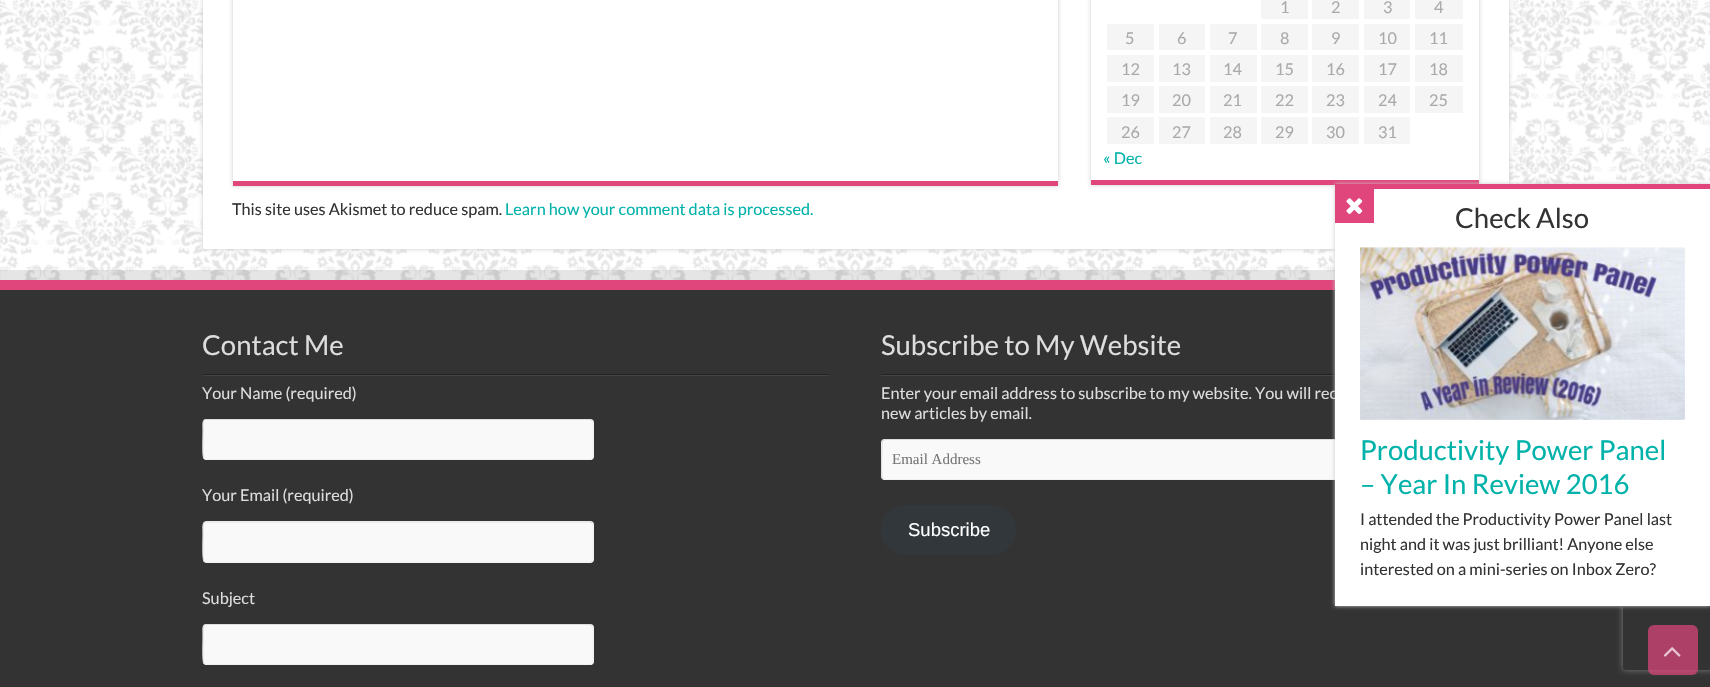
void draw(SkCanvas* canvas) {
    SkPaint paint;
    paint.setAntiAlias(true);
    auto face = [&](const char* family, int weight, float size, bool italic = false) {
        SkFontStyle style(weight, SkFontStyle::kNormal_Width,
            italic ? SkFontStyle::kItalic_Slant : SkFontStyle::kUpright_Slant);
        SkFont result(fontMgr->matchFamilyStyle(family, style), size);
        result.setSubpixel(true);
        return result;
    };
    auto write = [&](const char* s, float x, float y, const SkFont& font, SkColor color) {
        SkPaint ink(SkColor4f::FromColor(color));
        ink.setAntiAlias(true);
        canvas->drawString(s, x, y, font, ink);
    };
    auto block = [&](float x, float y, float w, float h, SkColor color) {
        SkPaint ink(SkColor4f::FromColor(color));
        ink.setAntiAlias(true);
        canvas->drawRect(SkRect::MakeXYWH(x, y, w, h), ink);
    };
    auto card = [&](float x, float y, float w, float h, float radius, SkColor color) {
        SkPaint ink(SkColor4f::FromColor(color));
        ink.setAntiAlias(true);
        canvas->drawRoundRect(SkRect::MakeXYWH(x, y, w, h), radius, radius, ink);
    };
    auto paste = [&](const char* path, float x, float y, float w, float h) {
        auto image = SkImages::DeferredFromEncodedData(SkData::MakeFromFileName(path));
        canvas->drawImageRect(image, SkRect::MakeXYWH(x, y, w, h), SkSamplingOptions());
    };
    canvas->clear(SK_ColorWHITE);
    paste("pic1.png", 0, 0, 1710, 280);
    paint.setColor(SkColorSetRGB(202, 202, 202));
    paint.setMaskFilter(SkMaskFilter::MakeBlur(kNormal_SkBlurStyle, 2));
    canvas->drawRect(SkRect::MakeXYWH(203, -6, 1306, 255), paint);
    paint.setMaskFilter(nullptr);
    block(203, 0, 1306, 249, SK_ColorWHITE);
    paint.setMaskFilter(SkMaskFilter::MakeBlur(kNormal_SkBlurStyle, 2));
    canvas->drawRect(SkRect::MakeXYWH(1091, -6, 388, 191), paint);
    paint.setMaskFilter(nullptr);
    block(1091, 0, 388, 180, SK_ColorWHITE);
    block(1091, 180, 388, 5, SkColorSetRGB(224, 69, 124));
    block(1261, 0, 47, 19, SkColorSetRGB(245, 245, 245));
    auto kFont1 = face("Lato", 400, 16.25f);
    write("1", 1280, 13, kFont1, SkColorSetRGB(170, 170, 170));
    block(1312, 0, 47, 19, SkColorSetRGB(245, 245, 245));
    write("2", 1331, 13, kFont1, SkColorSetRGB(170, 170, 170));
    block(1364, 0, 46, 19, SkColorSetRGB(245, 245, 245));
    write("3", 1383, 13, kFont1, SkColorSetRGB(170, 170, 170));
    block(1415, 0, 48, 19, SkColorSetRGB(245, 245, 245));
    write("4", 1434, 13, kFont1, SkColorSetRGB(170, 170, 170));
    block(1107, 24, 47, 26, SkColorSetRGB(245, 245, 245));
    write("5", 1125, 44, kFont1, SkColorSetRGB(170, 170, 170));
    block(1159, 24, 46, 26, SkColorSetRGB(245, 245, 245));
    write("6", 1177, 44, kFont1, SkColorSetRGB(170, 170, 170));
    block(1210, 24, 47, 26, SkColorSetRGB(245, 245, 245));
    write("7", 1228, 44, kFont1, SkColorSetRGB(170, 170, 170));
    block(1261, 24, 47, 26, SkColorSetRGB(245, 245, 245));
    write("8", 1280, 44, kFont1, SkColorSetRGB(170, 170, 170));
    block(1312, 24, 47, 26, SkColorSetRGB(245, 245, 245));
    write("9", 1331, 44, kFont1, SkColorSetRGB(170, 170, 170));
    block(1364, 24, 46, 26, SkColorSetRGB(245, 245, 245));
    write("10", 1378, 44, kFont1, SkColorSetRGB(170, 170, 170));
    block(1415, 24, 48, 26, SkColorSetRGB(245, 245, 245));
    write("11", 1429, 44, kFont1, SkColorSetRGB(170, 170, 170));
    block(1107, 55, 47, 27, SkColorSetRGB(245, 245, 245));
    write("12", 1121, 75, kFont1, SkColorSetRGB(170, 170, 170));
    block(1159, 55, 46, 27, SkColorSetRGB(245, 245, 245));
    write("13", 1172, 75, kFont1, SkColorSetRGB(170, 170, 170));
    block(1210, 55, 47, 27, SkColorSetRGB(245, 245, 245));
    write("14", 1223, 75, kFont1, SkColorSetRGB(170, 170, 170));
    block(1261, 55, 47, 27, SkColorSetRGB(245, 245, 245));
    write("15", 1275, 75, kFont1, SkColorSetRGB(170, 170, 170));
    block(1312, 55, 47, 27, SkColorSetRGB(245, 245, 245));
    write("16", 1326, 75, kFont1, SkColorSetRGB(170, 170, 170));
    block(1364, 55, 46, 27, SkColorSetRGB(245, 245, 245));
    write("17", 1378, 75, kFont1, SkColorSetRGB(170, 170, 170));
    block(1415, 55, 48, 27, SkColorSetRGB(245, 245, 245));
    write("18", 1429, 75, kFont1, SkColorSetRGB(170, 170, 170));
    block(1107, 86, 47, 27, SkColorSetRGB(245, 245, 245));
    write("19", 1121, 106, kFont1, SkColorSetRGB(170, 170, 170));
    block(1159, 86, 46, 27, SkColorSetRGB(245, 245, 245));
    write("20", 1172, 106, kFont1, SkColorSetRGB(170, 170, 170));
    block(1210, 86, 47, 27, SkColorSetRGB(245, 245, 245));
    write("21", 1223, 106, kFont1, SkColorSetRGB(170, 170, 170));
    block(1261, 86, 47, 27, SkColorSetRGB(245, 245, 245));
    write("22", 1275, 106, kFont1, SkColorSetRGB(170, 170, 170));
    block(1312, 86, 47, 27, SkColorSetRGB(245, 245, 245));
    write("23", 1326, 106, kFont1, SkColorSetRGB(170, 170, 170));
    block(1364, 86, 46, 27, SkColorSetRGB(245, 245, 245));
    write("24", 1378, 106, kFont1, SkColorSetRGB(170, 170, 170));
    block(1415, 86, 48, 27, SkColorSetRGB(245, 245, 245));
    write("25", 1429, 106, kFont1, SkColorSetRGB(170, 170, 170));
    block(1107, 117, 47, 27, SkColorSetRGB(245, 245, 245));
    write("26", 1121, 138, kFont1, SkColorSetRGB(170, 170, 170));
    block(1159, 117, 46, 27, SkColorSetRGB(245, 245, 245));
    write("27", 1172, 138, kFont1, SkColorSetRGB(170, 170, 170));
    block(1210, 117, 47, 27, SkColorSetRGB(245, 245, 245));
    write("28", 1223, 138, kFont1, SkColorSetRGB(170, 170, 170));
    block(1261, 117, 47, 27, SkColorSetRGB(245, 245, 245));
    write("29", 1275, 138, kFont1, SkColorSetRGB(170, 170, 170));
    block(1312, 117, 47, 27, SkColorSetRGB(245, 245, 245));
    write("30", 1326, 138, kFont1, SkColorSetRGB(170, 170, 170));
    block(1364, 117, 46, 27, SkColorSetRGB(245, 245, 245));
    write("31", 1378, 138, kFont1, SkColorSetRGB(170, 170, 170));
    write("« Dec", 1103, 164, kFont1, SkColorSetRGB(0, 178, 169));
    paint.setMaskFilter(SkMaskFilter::MakeBlur(kNormal_SkBlurStyle, 2));
    canvas->drawRect(SkRect::MakeXYWH(233, -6, 825, 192), paint);
    paint.setMaskFilter(nullptr);
    block(233, 0, 825, 181, SK_ColorWHITE);
    block(233, 181, 825, 5, SkColorSetRGB(224, 69, 124));
    write("This site uses Akismet to reduce spam.", 232, 215, kFont1, SkColorSetRGB(51, 51, 51));
    write("Learn how your comment data is processed.", 505, 215, kFont1, SkColorSetRGB(0, 178, 169));
    block(0, 270, 1335, 10, SkColorSetARGB(26, 0, 0, 0));
    block(0, 290, 1710, 397, SkColorSetRGB(51, 51, 51));
    block(0, 280, 1335, 10, SkColorSetRGB(224, 69, 124));
    block(881, 374, 454, 1, SkColorSetRGB(34, 34, 34));
    block(881, 375, 454, 1, SkColorSetRGB(68, 68, 68));
    card(881, 439, 595, 41, 4, SkColorSetRGB(249, 249, 249));
    paint.setStyle(SkPaint::kStroke_Style);
    paint.setStrokeWidth(1.2f);
    paint.setColor(SkColorSetRGB(241, 241, 241));
    canvas->drawPath(SkPathBuilder().moveTo(1474.5f, 440.5f).lineTo(1475.5f, 442).cubicTo(1476, 445, 1476, 476.5f, 1475, 478).lineTo(1472.5f, 479.5f).lineTo(885, 479.5f).lineTo(883, 478.5f).detach(), paint);
    paint.setColor(SkColorSetRGB(221, 221, 221));
    canvas->drawPath(SkPathBuilder().moveTo(883, 478.5f).lineTo(882, 477).cubicTo(881.5f, 474, 881.5f, 442, 882.5f, 440.5f).lineTo(885, 439.5f).lineTo(1472.5f, 439.5f).lineTo(1474.5f, 440.5f).detach(), paint);
    paint.setStyle(SkPaint::kFill_Style);
    paint.setColor(SkColorSetRGB(202, 202, 202));
    paint.setMaskFilter(SkMaskFilter::MakeBlur(kNormal_SkBlurStyle, 2));
    canvas->drawRect(SkRect::MakeXYWH(1335, 184, 375, 422), paint);
    paint.setMaskFilter(nullptr);
    write("Enter your email address to subscribe to my website. You will rec", 881, 399, kFont1, SkColorSetRGB(221, 221, 221));
    canvas->save();
    canvas->clipPath(SkPathBuilder(SkPathFillType::kEvenOdd).moveTo(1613, 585).lineTo(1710, 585).lineTo(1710, 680).lineTo(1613, 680).close().moveTo(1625.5f, 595).lineTo(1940.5f, 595).cubicTo(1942, 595, 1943, 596, 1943, 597.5f).lineTo(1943, 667.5f).cubicTo(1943, 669, 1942, 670, 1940.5f, 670).lineTo(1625.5f, 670).cubicTo(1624, 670, 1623, 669, 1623, 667.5f).lineTo(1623, 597.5f).cubicTo(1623, 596, 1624, 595, 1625.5f, 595).close().detach(), true);
    paint.setColor(SkColorSetRGB(128, 128, 128));
    paint.setMaskFilter(SkMaskFilter::MakeBlur(kNormal_SkBlurStyle, 3));
    canvas->drawRoundRect(SkRect::MakeXYWH(1623, 595, 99, 75), 2.5f, 2.5f, paint);
    paint.setMaskFilter(nullptr);
    canvas->restore();
    block(1335, 189, 375, 417, SK_ColorWHITE);
    block(1335, 184, 375, 5, SkColorSetRGB(224, 69, 124));
    block(1335, 189, 39, 34, SkColorSetRGB(224, 69, 124));
    paste("pic2.png", 1346, 198, 17, 16);
    auto kFont2 = face("Lato", 400, 27.5f);
    write("Check Also", 1455, 228, kFont2, SkColorSetRGB(51, 51, 51));
    paste("pic3.png", 1360, 247, 325, 173);
    write("Productivity Power Panel", 1360, 460, kFont2, SkColorSetRGB(0, 178, 169));
    write("– Year In Review 2016", 1360, 494, kFont2, SkColorSetRGB(0, 178, 169));
    write("I attended the Productivity Power Panel last", 1360, 525, kFont1, SkColorSetRGB(51, 51, 51));
    write("night and it was just brilliant! Anyone else", 1360, 550, kFont1, SkColorSetRGB(51, 51, 51));
    write("interested on a mini-series on Inbox Zero?", 1360, 575, kFont1, SkColorSetRGB(51, 51, 51));
    block(203, 374, 626, 1, SkColorSetRGB(34, 34, 34));
    write("Contact Me", 202, 355, kFont2, SkColorSetRGB(221, 221, 221));
    block(203, 375, 626, 1, SkColorSetRGB(68, 68, 68));
    write("Your Name (required)", 202, 399, kFont1, SkColorSetRGB(221, 221, 221));
    card(203, 419, 391, 41, 4, SkColorSetRGB(249, 249, 249));
    paint.setStyle(SkPaint::kStroke_Style);
    paint.setColor(SkColorSetRGB(241, 241, 241));
    canvas->drawPath(SkPathBuilder().moveTo(592, 420.5f).cubicTo(594.5f, 422.5f, 593, 441, 593, 445).lineTo(593, 450.5f).cubicTo(593, 453, 594.5f, 459.5f, 590, 459.5f).lineTo(206, 459.5f).lineTo(204, 458.5f).detach(), paint);
    paint.setColor(SkColorSetRGB(221, 221, 221));
    canvas->drawPath(SkPathBuilder().moveTo(204, 458.5f).cubicTo(202, 456.5f, 203, 437.5f, 203, 434).lineTo(203, 428).cubicTo(203, 426, 202, 419.5f, 206, 419.5f).lineTo(590, 419.5f).lineTo(592, 420.5f).detach(), paint);
    write("Your Email (required)", 202, 501, kFont1, SkColorSetRGB(221, 221, 221));
    card(203, 521, 391, 42, 4, SkColorSetRGB(249, 249, 249));
    paint.setColor(SkColorSetRGB(241, 241, 241));
    canvas->drawPath(SkPathBuilder().moveTo(592, 523).cubicTo(594.5f, 525, 593, 543.5f, 593, 547.5f).lineTo(593, 553).cubicTo(593, 555.5f, 594.5f, 562, 590, 562).lineTo(206, 562).lineTo(204, 561).detach(), paint);
    paint.setColor(SkColorSetRGB(221, 221, 221));
    canvas->drawPath(SkPathBuilder().moveTo(204, 561).cubicTo(202, 559, 203, 540, 203, 536).lineTo(203, 530.5f).cubicTo(203, 528.5f, 202, 522, 206, 522).lineTo(590, 522).lineTo(592, 523).detach(), paint);
    write("Subject", 202, 604, kFont1, SkColorSetRGB(221, 221, 221));
    card(203, 624, 391, 41, 4, SkColorSetRGB(249, 249, 249));
    paint.setColor(SkColorSetRGB(241, 241, 241));
    canvas->drawPath(SkPathBuilder().moveTo(592, 625.5f).cubicTo(594.5f, 627.5f, 593, 646, 593, 650).lineTo(593, 655.5f).cubicTo(593, 658, 594.5f, 664.5f, 590, 664.5f).lineTo(206, 664.5f).lineTo(204, 663.5f).detach(), paint);
    paint.setColor(SkColorSetRGB(221, 221, 221));
    canvas->drawPath(SkPathBuilder().moveTo(204, 663.5f).cubicTo(202, 661.5f, 203, 642.5f, 203, 639).lineTo(203, 633).cubicTo(203, 631, 202, 624.5f, 206, 624.5f).lineTo(590, 624.5f).lineTo(592, 625.5f).detach(), paint);
    write("Subscribe to My Website", 881, 355, kFont2, SkColorSetRGB(221, 221, 221));
    write("new articles by email.", 881, 419, kFont1, SkColorSetRGB(221, 221, 221));
    auto kFont3 = face("Liberation Serif", 400, 15);
    write("Email Address", 892, 464, kFont3, SkColorSetRGB(117, 117, 117));
    card(881, 505, 135, 50, 25, SkColorSetRGB(50, 55, 60));
    auto kFont4 = face("Liberation Sans", 400, 18.5f);
    write("Subscribe", 908, 536, kFont4, SK_ColorWHITE);
    card(1648, 625, 50, 50, 6, SkColorSetARGB(179, 224, 69, 124));
    paste("pic4.png", 1663, 647, 18, 10);
}
